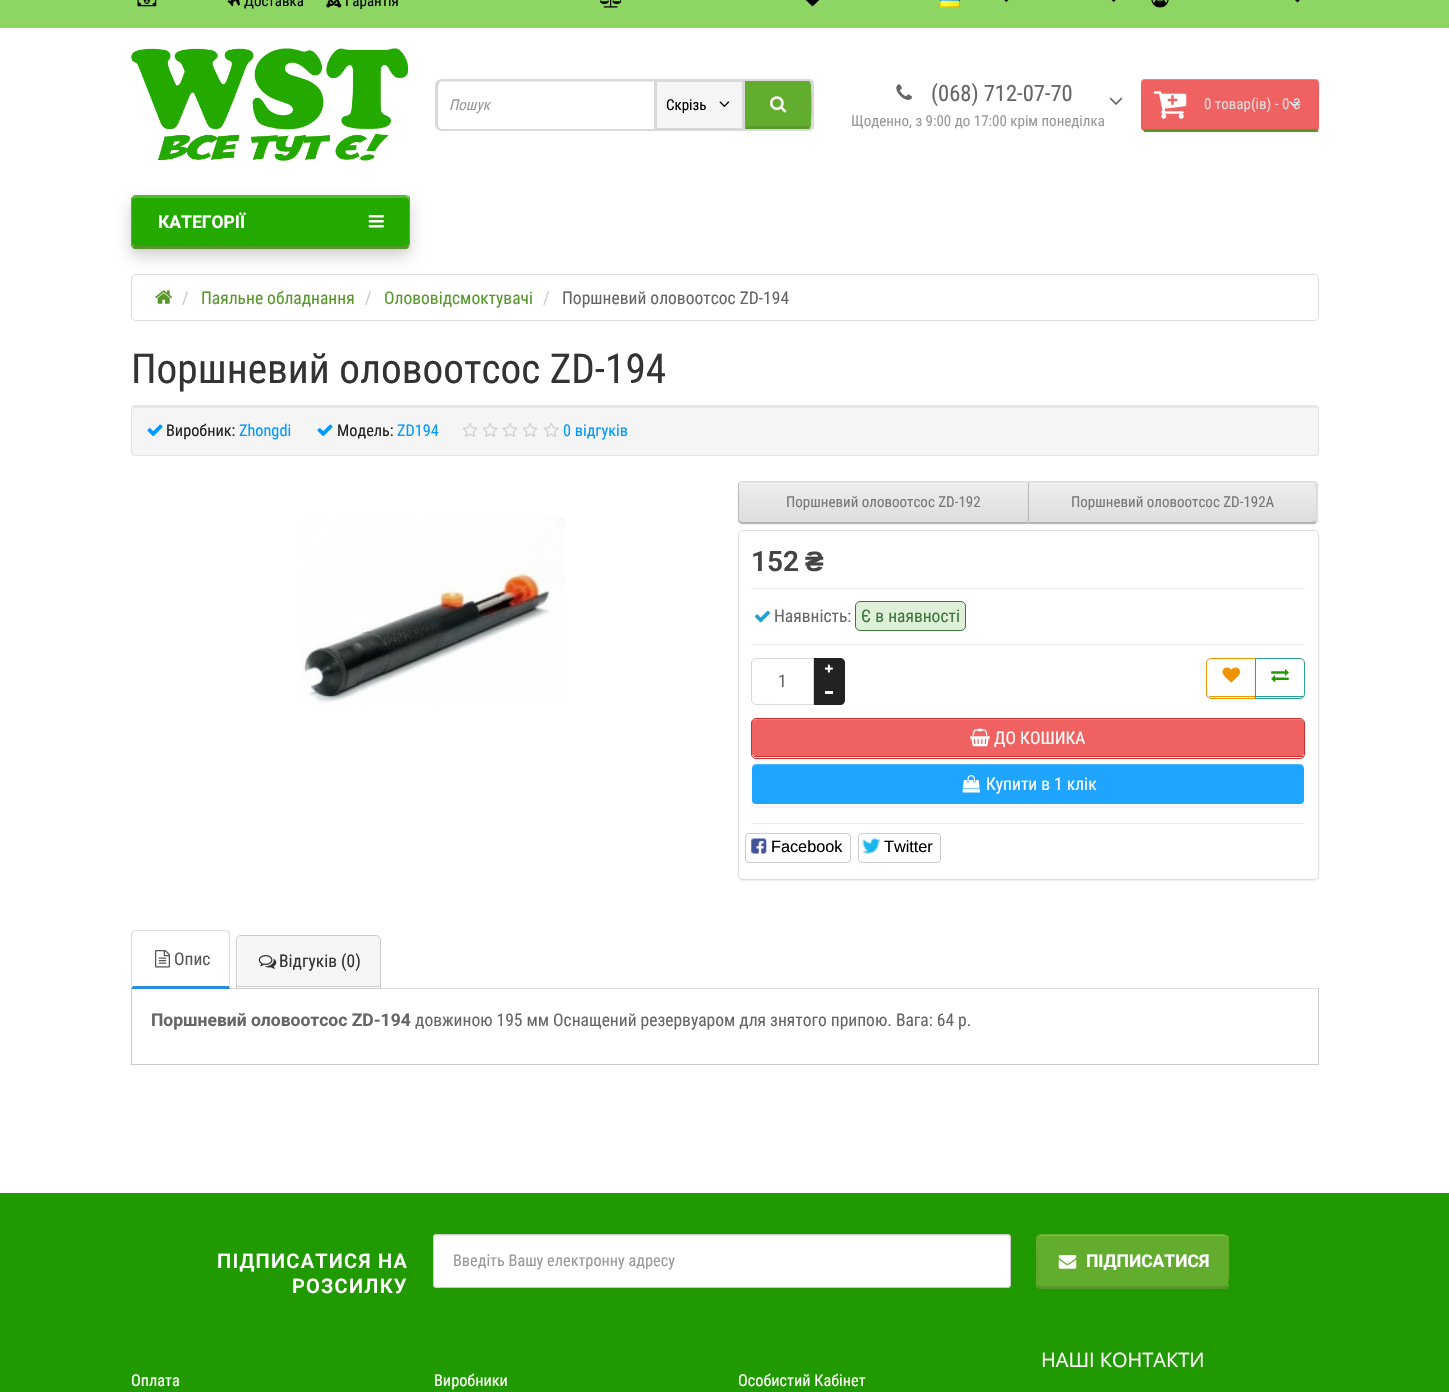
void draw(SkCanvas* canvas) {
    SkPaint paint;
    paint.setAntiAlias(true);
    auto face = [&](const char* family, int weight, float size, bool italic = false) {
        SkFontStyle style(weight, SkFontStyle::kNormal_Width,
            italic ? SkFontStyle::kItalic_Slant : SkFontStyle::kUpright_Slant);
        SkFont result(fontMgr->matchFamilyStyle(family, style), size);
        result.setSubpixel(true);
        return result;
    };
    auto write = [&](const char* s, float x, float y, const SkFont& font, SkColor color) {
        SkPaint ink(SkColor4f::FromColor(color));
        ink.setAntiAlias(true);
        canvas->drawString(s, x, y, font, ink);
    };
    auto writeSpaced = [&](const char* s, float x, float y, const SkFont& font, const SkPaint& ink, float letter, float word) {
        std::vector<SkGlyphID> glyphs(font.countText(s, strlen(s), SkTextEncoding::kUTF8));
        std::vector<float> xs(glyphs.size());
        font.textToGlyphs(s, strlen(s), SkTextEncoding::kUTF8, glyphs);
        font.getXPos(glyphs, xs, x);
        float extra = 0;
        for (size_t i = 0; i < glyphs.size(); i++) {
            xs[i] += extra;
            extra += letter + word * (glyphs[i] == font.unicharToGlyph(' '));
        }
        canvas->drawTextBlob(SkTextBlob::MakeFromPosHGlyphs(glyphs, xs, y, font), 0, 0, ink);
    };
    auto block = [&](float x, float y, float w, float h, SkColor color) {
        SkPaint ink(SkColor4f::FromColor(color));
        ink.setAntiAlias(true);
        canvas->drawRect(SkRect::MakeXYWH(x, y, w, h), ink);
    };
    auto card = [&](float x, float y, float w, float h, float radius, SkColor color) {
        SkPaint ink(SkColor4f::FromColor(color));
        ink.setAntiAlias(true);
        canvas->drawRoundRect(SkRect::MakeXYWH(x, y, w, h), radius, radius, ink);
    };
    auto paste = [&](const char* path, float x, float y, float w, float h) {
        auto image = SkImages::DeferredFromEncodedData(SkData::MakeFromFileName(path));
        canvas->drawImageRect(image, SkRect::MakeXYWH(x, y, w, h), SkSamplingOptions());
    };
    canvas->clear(SK_ColorWHITE);
    block(0, 0, 1449, 28, SkColorSetRGB(141, 214, 99));
    paste("pic1.png", 137, 0, 20, 7);
    paste("pic2.png", 227, 0, 13, 7);
    auto kFont1 = face("Roboto Condensed", 400, 15);
    write("Доставка", 244, 6, kFont1, SK_ColorBLACK);
    paste("pic3.png", 326, 0, 16, 8);
    write("Гарантія", 345, 6, kFont1, SK_ColorBLACK);
    paste("pic4.png", 600, 0, 22, 8);
    paste("pic5.png", 805, 0, 15, 7);
    paste("pic6.png", 940, 0, 20, 8);
    paste("pic7.png", 1004, 0, 5, 2);
    paste("pic8.png", 1111, 0, 5, 2);
    paste("pic9.png", 1151, 0, 18, 8);
    paint.setColor(SK_ColorBLACK);
    canvas->drawPath(SkPathBuilder().moveTo(1292.5f, -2.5f).lineTo(1302.5f, -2.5f).lineTo(1297.5f, 2.5f).close().detach(), paint);
    paste("pic10.png", 131, 48, 278, 113);
    paint.setColor(SkColorSetRGB(236, 236, 236));
    canvas->drawPath(SkPathBuilder().moveTo(442, 82).lineTo(654, 82).lineTo(654, 81).lineTo(443, 81).cubicTo(440, 81, 438, 83, 438, 86).lineTo(438, 88).cubicTo(438, 85, 440, 82, 442, 82).close().detach(), paint);
    paint.setColor(SkColorSetRGB(217, 217, 217));
    canvas->drawPath(SkPathBuilder(SkPathFillType::kEvenOdd).moveTo(442, 79).lineTo(654, 79).lineTo(654, 131).lineTo(442, 131).cubicTo(438, 131, 435, 128, 435, 124).lineTo(435, 86).cubicTo(435, 82, 438, 79, 442, 79).close().moveTo(442, 81).lineTo(654, 81).lineTo(654, 129).lineTo(442, 129).cubicTo(440, 129, 438, 127, 438, 124).lineTo(438, 86).cubicTo(438, 83, 440, 81, 442, 81).close().detach(), paint);
    auto kFont2 = face("Roboto Condensed", 400, 15, true);
    write("Пошук", 449, 110, kFont2, SkColorSetRGB(153, 153, 153));
    paint.setColor(SkColorSetRGB(245, 245, 245));
    canvas->drawRect(SkRect::MakeXYWH(655.5f, 80.5f, 88, 49), paint);
    paint.setStyle(SkPaint::kStroke_Style);
    paint.setStrokeWidth(3);
    paint.setColor(SkColorSetRGB(217, 217, 217));
    canvas->drawRect(SkRect::MakeXYWH(655.5f, 80.5f, 88, 49), paint);
    write("Скрізь", 666, 110, kFont1, SK_ColorBLACK);
    paste("pic11.png", 719, 101, 11, 6);
    canvas->drawPath(SkPathBuilder().moveTo(744.5f, 80.5f).lineTo(809, 80.5f).cubicTo(811, 80.5f, 812.5f, 82, 812.5f, 84).lineTo(812.5f, 126).cubicTo(812.5f, 128, 811, 129.5f, 809, 129.5f).lineTo(744.5f, 129.5f).close().detach(), paint);
    paint.setStyle(SkPaint::kFill_Style);
    paint.setColor(SkColorSetRGB(98, 173, 45));
    canvas->drawPath(SkPathBuilder().moveTo(745, 81).lineTo(807, 81).cubicTo(809, 81, 811, 83, 811, 85).lineTo(811, 125).cubicTo(811, 127, 809, 129, 807, 129).lineTo(745, 129).close().detach(), paint);
    canvas->drawPath(SkPathBuilder().moveTo(748, 84).lineTo(745, 81).lineTo(809, 81).lineTo(810, 82).lineTo(808, 84).close().detach(), paint);
    canvas->drawPath(SkPathBuilder().moveTo(810, 82).cubicTo(812, 84, 812, 126, 810, 128).lineTo(808, 126).lineTo(809, 125).lineTo(809, 85).lineTo(808, 84).close().detach(), paint);
    paint.setColor(SkColorSetRGB(88, 152, 43));
    canvas->drawPath(SkPathBuilder().moveTo(809, 129).lineTo(745, 129).lineTo(748, 126).lineTo(808, 126).lineTo(810, 128).close().detach(), paint);
    paint.setColor(SkColorSetRGB(98, 173, 45));
    canvas->drawPath(SkPathBuilder().moveTo(745, 129).lineTo(748, 126).lineTo(748, 84).lineTo(745, 81).close().detach(), paint);
    paste("pic12.png", 770, 96, 17, 17);
    paste("pic13.png", 896, 84, 16, 16);
    auto kFont3 = face("Roboto Condensed", 400, 22.5f);
    write("(068) 712-07-70", 931, 101, kFont3, SkColorSetRGB(102, 102, 102));
    paste("pic14.png", 1109, 97, 14, 8);
    write("Щоденно, з 9:00 до 17:00 крім понеділка", 851, 126, kFont1, SkColorSetRGB(153, 153, 153));
    paint.setColor(SkColorSetARGB(13, 0, 0, 0));
    paint.setMaskFilter(SkMaskFilter::MakeBlur(kNormal_SkBlurStyle, 1));
    canvas->drawRoundRect(SkRect::MakeXYWH(1141, 80, 178, 53), 4, 4, paint);
    paint.setMaskFilter(nullptr);
    card(1141, 79, 178, 52, 4, SkColorSetRGB(240, 98, 98));
    paint.setColor(SkColorSetARGB(51, 255, 255, 255));
    canvas->drawPath(SkPathBuilder().moveTo(1145, 80).lineTo(1315, 80).cubicTo(1317, 80, 1318, 81, 1319, 83).lineTo(1319, 82).cubicTo(1319, 80, 1317, 79, 1315, 79).lineTo(1145, 79).cubicTo(1143, 79, 1141, 80, 1141, 82).lineTo(1141, 83).cubicTo(1142, 81, 1143, 80, 1145, 80).close().detach(), paint);
    block(1144, 129, 174, 3, SkColorSetRGB(88, 152, 43));
    paste("pic15.png", 1153, 91, 34, 28);
    write("0 товар(ів) - 0", 1204, 109, kFont1, SkColorSetRGB(221, 221, 221));
    paste("pic16.png", 1289, 101, 11, 6);
    auto kFont4 = face("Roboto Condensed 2", 400, 15);
    write("₴", 1293, 109, kFont4, SkColorSetRGB(221, 221, 221));
    paint.setStyle(SkPaint::kStroke_Style);
    paint.setStrokeWidth(1);
    paint.setColor(SkColorSetRGB(221, 221, 221));
    canvas->drawRoundRect(SkRect::MakeXYWH(131.5f, 274.5f, 1187, 46), 4.5f, 4.5f, paint);
    paint.setStyle(SkPaint::kFill_Style);
    paint.setColor(SkColorSetARGB(46, 0, 0, 0));
    paint.setMaskFilter(SkMaskFilter::MakeBlur(kNormal_SkBlurStyle, 7.5f));
    canvas->drawRoundRect(SkRect::MakeXYWH(131, 203, 279, 53), 5, 5, paint);
    paint.setMaskFilter(nullptr);
    paint.setColor(SkColorSetARGB(13, 0, 0, 0));
    paint.setMaskFilter(SkMaskFilter::MakeBlur(kNormal_SkBlurStyle, 1));
    canvas->drawRoundRect(SkRect::MakeXYWH(131, 196, 279, 54), 5, 5, paint);
    paint.setMaskFilter(nullptr);
    paint.setColor(SkColorSetRGB(36, 169, 0));
    canvas->drawPath(SkPathBuilder().moveTo(136, 196).lineTo(405, 196).cubicTo(407, 196, 409, 198, 409, 200).lineTo(409, 244).cubicTo(409, 245, 407, 246, 405, 246).lineTo(136, 246).cubicTo(134, 246, 132, 245, 132, 244).lineTo(132, 200).cubicTo(132, 198, 134, 196, 136, 196).close().detach(), paint);
    paint.setColor(SkColorSetARGB(51, 255, 255, 255));
    canvas->drawPath(SkPathBuilder().moveTo(136, 198).lineTo(405, 198).cubicTo(407, 198, 408, 199, 409, 200).cubicTo(409, 198, 407, 196, 405, 196).lineTo(136, 196).cubicTo(134, 196, 133, 198, 133, 199).cubicTo(133, 198, 135, 198, 136, 198).close().detach(), paint);
    paint.setColor(SkColorSetRGB(98, 173, 45));
    canvas->drawPath(SkPathBuilder().moveTo(136, 195).cubicTo(135, 195, 133, 195, 133, 196).lineTo(133, 197).cubicTo(134, 196, 135, 196, 136, 196).lineTo(405, 196).cubicTo(406, 196, 407, 196, 408, 197).lineTo(409, 196).cubicTo(408, 196, 406, 195, 405, 195).close().detach(), paint);
    canvas->drawPath(SkPathBuilder().moveTo(410, 244).lineTo(410, 200).cubicTo(410, 198, 410, 197, 409, 196).lineTo(408, 197).cubicTo(408, 198, 409, 199, 409, 200).lineTo(409, 244).lineTo(408, 245).lineTo(409, 247).close().detach(), paint);
    paint.setColor(SkColorSetRGB(88, 152, 43));
    canvas->drawPath(SkPathBuilder().moveTo(134, 249).lineTo(132, 247).lineTo(133, 245).lineTo(136, 246).lineTo(405, 246).lineTo(408, 245).lineTo(409, 247).lineTo(407, 249).close().detach(), paint);
    paint.setColor(SkColorSetRGB(98, 173, 45));
    canvas->drawPath(SkPathBuilder().moveTo(131, 198).lineTo(133, 196).lineTo(133, 197).cubicTo(133, 198, 132, 199, 132, 200).lineTo(132, 244).lineTo(133, 245).lineTo(132, 247).lineTo(131, 246).close().detach(), paint);
    auto kFont5 = face("Roboto", 700, 17.5f);
    write("КАТЕГОРІЇ", 158, 228, kFont5, SK_ColorWHITE);
    paste("pic17.png", 368, 215, 16, 13);
    paste("pic18.png", 155, 290, 18, 14);
    auto kFont6 = face("Roboto Condensed", 400, 17.5f);
    write("/", 182, 304, kFont6, SkColorSetRGB(204, 204, 204));
    write("Паяльне обладнання", 201, 304, kFont6, SkColorSetRGB(88, 152, 43));
    write("/", 365, 304, kFont6, SkColorSetRGB(204, 204, 204));
    write("Олововідсмоктувачі", 384, 304, kFont6, SkColorSetRGB(88, 152, 43));
    write("/", 543, 304, kFont6, SkColorSetRGB(204, 204, 204));
    write("Поршневий оловоотсос ZD-194", 562, 304, kFont6, SkColorSetRGB(102, 102, 102));
    auto kFont7 = face("Roboto Condensed", 400, 41.25f);
    write("Поршневий оловоотсос ZD-194", 131, 383, kFont7, SkColorSetRGB(51, 51, 51));
    card(131, 405, 1188, 51, 4, SkColorSetRGB(245, 245, 245));
    paint.setColor(SkColorSetRGB(233, 233, 233));
    canvas->drawPath(SkPathBuilder().moveTo(135, 408).lineTo(1315, 408).cubicTo(1316, 408, 1318, 409, 1318, 410).cubicTo(1318, 408, 1318, 406, 1316, 406).lineTo(136, 406).cubicTo(134, 406, 133, 407, 133, 409).close().detach(), paint);
    paint.setStyle(SkPaint::kStroke_Style);
    paint.setColor(SkColorSetRGB(227, 227, 227));
    canvas->drawRoundRect(SkRect::MakeXYWH(131.5f, 405.5f, 1187, 50), 3.5f, 3.5f, paint);
    paste("pic19.png", 147, 424, 16, 13);
    auto kFont8 = face("Roboto Condensed", 400, 16.25f);
    write("Виробник:", 166, 436, kFont8, SkColorSetRGB(34, 34, 34));
    write("Zhongdi", 239, 436, kFont8, SkColorSetRGB(0, 153, 255));
    paste("pic19.png", 317, 424, 16, 13);
    write("Модель:", 337, 436, kFont8, SkColorSetRGB(34, 34, 34));
    write("ZD194", 397, 436, kFont8, SkColorSetRGB(0, 153, 255));
    paste("pic20.png", 462, 422, 16, 15);
    paste("pic20.png", 482, 422, 16, 15);
    paste("pic20.png", 502, 422, 16, 15);
    paste("pic20.png", 522, 422, 16, 15);
    paste("pic21.png", 543, 422, 16, 15);
    write("0 відгуків", 563, 436, kFont8, SkColorSetRGB(0, 153, 255));
    paste("pic22.png", 300, 517, 265, 189);
    paint.setStyle(SkPaint::kFill_Style);
    paint.setColor(SkColorSetARGB(13, 0, 0, 0));
    paint.setMaskFilter(SkMaskFilter::MakeBlur(kNormal_SkBlurStyle, 1));
    canvas->drawRoundRect(SkRect::MakeXYWH(738, 483, 291, 42), 5, 5, paint);
    paint.setMaskFilter(nullptr);
    paint.setColor(SkColorSetRGB(231, 231, 231));
    canvas->drawPath(SkPathBuilder().moveTo(743, 481).lineTo(1029, 481).lineTo(1029, 524).lineTo(743, 524).cubicTo(740, 524, 738, 522, 738, 519).lineTo(738, 486).cubicTo(738, 483, 740, 481, 743, 481).close().detach(), paint);
    canvas->save();
    canvas->clipPath(SkPathBuilder().moveTo(743, 481).lineTo(1029, 481).lineTo(1029, 524).lineTo(743, 524).cubicTo(740, 524, 738, 522, 738, 519).lineTo(738, 486).cubicTo(738, 483, 740, 481, 743, 481).close().detach(), true);
    {
        const SkColor colors[] = {SkColorSetRGB(238, 238, 238), SkColorSetRGB(221, 221, 221)};
        const float stops[] = {0, 1};
        const SkPoint ends[] = {{883, 483}, {883, 523}};
        paint.setShader(SkGradientShader::MakeLinear(ends, colors, stops, 2, SkTileMode::kClamp));
        paint.setAlpha(255);
    }
    canvas->drawRect(SkRect::MakeXYWH(738, 483, 290, 40), paint);
    canvas->restore();
    paint.setShader(nullptr);
    paint.setColor(SkColorSetRGB(241, 241, 241));
    canvas->drawPath(SkPathBuilder().moveTo(742, 484).lineTo(1028, 484).lineTo(1028, 483).lineTo(743, 483).cubicTo(740, 483, 739, 485, 739, 488).cubicTo(739, 485, 740, 484, 742, 484).close().detach(), paint);
    paint.setColor(SkColorSetRGB(221, 221, 221));
    canvas->drawPath(SkPathBuilder().moveTo(742, 482).cubicTo(741, 482, 740, 483, 740, 483).lineTo(739, 483).lineTo(741, 481).lineTo(1029, 481).lineTo(1028, 482).close().detach(), paint);
    paint.setColor(SkColorSetRGB(179, 179, 179));
    canvas->drawPath(SkPathBuilder().moveTo(1029, 524).lineTo(741, 524).lineTo(739, 522).lineTo(740, 521).lineTo(742, 522).lineTo(1027, 522).close().detach(), paint);
    paint.setColor(SkColorSetRGB(183, 183, 183));
    canvas->drawPath(SkPathBuilder().moveTo(739, 522.5f).cubicTo(738.5f, 521.5f, 738, 520.5f, 738, 519).lineTo(738, 486).cubicTo(738, 484.5f, 738.5f, 483.5f, 739, 482.5f).lineTo(739.5f, 483.5f).cubicTo(738.5f, 485.5f, 739, 490, 739, 491.5f).lineTo(739, 520).lineTo(740, 521.5f).close().detach(), paint);
    write("Поршневий оловоотсос ZD-192", 786, 507, kFont1, SkColorSetRGB(119, 119, 119));
    paint.setColor(SkColorSetARGB(13, 0, 0, 0));
    paint.setMaskFilter(SkMaskFilter::MakeBlur(kNormal_SkBlurStyle, 1));
    canvas->drawRoundRect(SkRect::MakeXYWH(1028, 483, 290, 42), 5, 5, paint);
    paint.setMaskFilter(nullptr);
    paint.setColor(SkColorSetRGB(231, 231, 231));
    canvas->drawPath(SkPathBuilder().moveTo(1028, 481).lineTo(1313, 481).cubicTo(1316, 481, 1318, 483, 1318, 486).lineTo(1318, 519).cubicTo(1318, 522, 1316, 524, 1313, 524).lineTo(1028, 524).close().detach(), paint);
    canvas->save();
    canvas->clipPath(SkPathBuilder().moveTo(1028, 481).lineTo(1313, 481).cubicTo(1316, 481, 1318, 483, 1318, 486).lineTo(1318, 519).cubicTo(1318, 522, 1316, 524, 1313, 524).lineTo(1028, 524).close().detach(), true);
    {
        const SkColor colors[] = {SkColorSetRGB(238, 238, 238), SkColorSetRGB(221, 221, 221)};
        const float stops[] = {0, 1};
        const SkPoint ends[] = {{1173, 483}, {1173, 523}};
        paint.setShader(SkGradientShader::MakeLinear(ends, colors, stops, 2, SkTileMode::kClamp));
        paint.setAlpha(255);
    }
    canvas->drawRect(SkRect::MakeXYWH(1028, 483, 290, 40), paint);
    canvas->restore();
    paint.setShader(nullptr);
    paint.setColor(SkColorSetRGB(241, 241, 241));
    canvas->drawPath(SkPathBuilder().moveTo(1029, 484).lineTo(1312, 484).cubicTo(1315, 484, 1316, 485, 1316, 488).cubicTo(1316, 485, 1315, 483, 1312, 483).lineTo(1029, 483).close().detach(), paint);
    paint.setColor(SkColorSetRGB(221, 221, 221));
    canvas->drawPath(SkPathBuilder().moveTo(1029, 482).lineTo(1029, 483).lineTo(1028, 481).lineTo(1314, 481).lineTo(1316, 482).lineTo(1315, 483).cubicTo(1315, 483, 1314, 482, 1312, 482).close().detach(), paint);
    canvas->drawPath(SkPathBuilder().moveTo(1318, 521).lineTo(1316, 523).lineTo(1315, 521).lineTo(1316, 520).cubicTo(1316, 517, 1317, 485, 1315, 483).lineTo(1316, 482).lineTo(1318, 484).close().detach(), paint);
    paint.setColor(SkColorSetRGB(179, 179, 179));
    canvas->drawPath(SkPathBuilder().moveTo(1028, 524).lineTo(1029, 522).lineTo(1312, 522).lineTo(1315, 521).lineTo(1316, 523).lineTo(1314, 524).close().detach(), paint);
    paint.setColor(SkColorSetRGB(183, 183, 183));
    canvas->drawPath(SkPathBuilder().moveTo(1028, 523).lineTo(1028, 482).lineTo(1029, 483).lineTo(1029, 522).close().detach(), paint);
    write("Поршневий оловоотсос ZD-192A", 1071, 507, kFont1, SkColorSetRGB(119, 119, 119));
    paint.setColor(SkColorSetARGB(13, 0, 0, 0));
    paint.setMaskFilter(SkMaskFilter::MakeBlur(kNormal_SkBlurStyle, 0.5f));
    canvas->drawRoundRect(SkRect::MakeXYWH(738, 531, 581, 350), 5, 5, paint);
    paint.setMaskFilter(nullptr);
    paint.setColor(SK_ColorWHITE);
    canvas->drawRoundRect(SkRect::MakeXYWH(738.5f, 530.5f, 580, 349), 4.5f, 4.5f, paint);
    paint.setStyle(SkPaint::kStroke_Style);
    paint.setColor(SkColorSetRGB(221, 221, 221));
    canvas->drawRoundRect(SkRect::MakeXYWH(738.5f, 530.5f, 580, 349), 4.5f, 4.5f, paint);
    auto kFont9 = face("Roboto", 600, 28);
    write("152", 751, 571, kFont9, SkColorSetRGB(68, 68, 68));
    auto kFont10 = face("Liberation Sans", 700, 28);
    write("₴", 805, 571, kFont10, SkColorSetRGB(68, 68, 68));
    block(751, 588, 554, 1, SkColorSetRGB(238, 238, 238));
    paste("pic23.png", 755, 610, 15, 13);
    write("Наявність:", 774, 622, kFont6, SkColorSetRGB(102, 102, 102));
    paint.setStyle(SkPaint::kFill_Style);
    paint.setColor(SkColorSetRGB(223, 240, 216));
    canvas->drawRoundRect(SkRect::MakeXYWH(855.5f, 601.5f, 110, 29), 4.5f, 4.5f, paint);
    paint.setStyle(SkPaint::kStroke_Style);
    paint.setColor(SkColorSetRGB(60, 118, 61));
    canvas->drawRoundRect(SkRect::MakeXYWH(855.5f, 601.5f, 110, 29), 4.5f, 4.5f, paint);
    write("Є в наявності", 861, 622, kFont6, SkColorSetRGB(60, 118, 61));
    block(751, 644, 554, 1, SkColorSetRGB(238, 238, 238));
    paint.setColor(SkColorSetRGB(217, 217, 217));
    canvas->drawPath(SkPathBuilder().moveTo(756, 658.5f).lineTo(813.5f, 658.5f).lineTo(813.5f, 704.5f).lineTo(756, 704.5f).cubicTo(753.5f, 704.5f, 751.5f, 702.5f, 751.5f, 700).lineTo(751.5f, 663).cubicTo(751.5f, 660.5f, 753.5f, 658.5f, 756, 658.5f).close().detach(), paint);
    write("1", 778, 687, kFont6, SkColorSetRGB(102, 102, 102));
    paint.setStyle(SkPaint::kFill_Style);
    paint.setColor(SkColorSetRGB(34, 34, 34));
    canvas->drawPath(SkPathBuilder().moveTo(814, 658).lineTo(840, 658).cubicTo(843, 658, 845, 660, 845, 663).lineTo(845, 681).lineTo(814, 681).close().detach(), paint);
    paste("pic24.png", 825, 664, 8, 9);
    canvas->drawPath(SkPathBuilder().moveTo(814, 681).lineTo(845, 681).lineTo(845, 700).cubicTo(845, 703, 843, 705, 840, 705).lineTo(814, 705).close().detach(), paint);
    block(825, 691, 8, 3, SK_ColorWHITE);
    paint.setStyle(SkPaint::kStroke_Style);
    paint.setColor(SkColorSetRGB(240, 147, 0));
    canvas->drawPath(SkPathBuilder().moveTo(1211, 658.5f).lineTo(1255.5f, 658.5f).lineTo(1255.5f, 698.5f).lineTo(1211, 698.5f).cubicTo(1208.5f, 698.5f, 1206.5f, 696.5f, 1206.5f, 694).lineTo(1206.5f, 663).cubicTo(1206.5f, 660.5f, 1208.5f, 658.5f, 1211, 658.5f).close().detach(), paint);
    block(1209, 696, 47, 1, SkColorSetRGB(240, 147, 0));
    paste("pic25.png", 1222, 667, 18, 16);
    paint.setStyle(SkPaint::kFill_Style);
    paint.setColor(SkColorSetARGB(13, 0, 0, 0));
    paint.setMaskFilter(SkMaskFilter::MakeBlur(kNormal_SkBlurStyle, 1));
    canvas->drawRoundRect(SkRect::MakeXYWH(1255, 659, 50, 41), 5, 5, paint);
    paint.setMaskFilter(nullptr);
    paint.setColor(SK_ColorWHITE);
    canvas->drawPath(SkPathBuilder().moveTo(1256, 659).lineTo(1300, 659).cubicTo(1302, 659, 1304, 660, 1304, 662).lineTo(1304, 694).cubicTo(1304, 695, 1302, 696, 1300, 696).lineTo(1256, 696).close().detach(), paint);
    paint.setStyle(SkPaint::kStroke_Style);
    paint.setColor(SkColorSetRGB(46, 159, 148));
    canvas->drawPath(SkPathBuilder().moveTo(1255.5f, 658.5f).lineTo(1300, 658.5f).cubicTo(1302.5f, 658.5f, 1304.5f, 660.5f, 1304.5f, 663).lineTo(1304.5f, 694).cubicTo(1304.5f, 696.5f, 1302.5f, 698.5f, 1300, 698.5f).lineTo(1255.5f, 698.5f).close().detach(), paint);
    block(1255, 696, 48, 1, SkColorSetRGB(46, 159, 148));
    paste("pic26.png", 1271, 669, 18, 14);
    paint.setStyle(SkPaint::kFill_Style);
    paint.setColor(SkColorSetARGB(13, 0, 0, 0));
    paint.setMaskFilter(SkMaskFilter::MakeBlur(kNormal_SkBlurStyle, 1));
    canvas->drawRoundRect(SkRect::MakeXYWH(751, 719, 554, 41), 5, 5, paint);
    paint.setMaskFilter(nullptr);
    paint.setColor(SkColorSetRGB(240, 98, 98));
    canvas->drawPath(SkPathBuilder().moveTo(756, 719).lineTo(1300, 719).cubicTo(1302, 719, 1304, 720, 1304, 722).lineTo(1304, 754).cubicTo(1304, 755, 1302, 756, 1300, 756).lineTo(756, 756).cubicTo(754, 756, 752, 755, 752, 754).lineTo(752, 722).cubicTo(752, 720, 754, 719, 756, 719).close().detach(), paint);
    paint.setColor(SkColorSetARGB(51, 255, 255, 255));
    canvas->drawPath(SkPathBuilder().moveTo(756, 720).lineTo(1300, 720).cubicTo(1302, 720, 1303, 721, 1304, 723).lineTo(1304, 722).cubicTo(1304, 720, 1302, 719, 1300, 719).lineTo(756, 719).cubicTo(754, 719, 753, 720, 753, 722).cubicTo(753, 721, 755, 720, 756, 720).close().detach(), paint);
    paint.setStyle(SkPaint::kStroke_Style);
    paint.setColor(SkColorSetRGB(202, 48, 48));
    canvas->drawRoundRect(SkRect::MakeXYWH(751.5f, 718.5f, 553, 40), 4.5f, 4.5f, paint);
    block(754, 756, 549, 1, SkColorSetRGB(202, 48, 48));
    paste("pic27.png", 970, 728, 20, 19);
    write("ДО КОШИКА", 994, 744, kFont6, SK_ColorWHITE);
    canvas->save();
    canvas->clipPath(SkPathBuilder(SkPathFillType::kEvenOdd).moveTo(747, 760).lineTo(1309, 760).lineTo(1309, 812).lineTo(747, 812).close().moveTo(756, 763).lineTo(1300, 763).cubicTo(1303, 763, 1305, 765, 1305, 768).lineTo(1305, 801).cubicTo(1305, 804, 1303, 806, 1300, 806).lineTo(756, 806).cubicTo(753, 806, 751, 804, 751, 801).lineTo(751, 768).cubicTo(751, 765, 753, 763, 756, 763).close().detach(), true);
    paint.setStyle(SkPaint::kFill_Style);
    paint.setColor(SkColorSetARGB(13, 0, 0, 0));
    paint.setMaskFilter(SkMaskFilter::MakeBlur(kNormal_SkBlurStyle, 1));
    canvas->drawRoundRect(SkRect::MakeXYWH(751, 764, 554, 44), 5, 5, paint);
    paint.setMaskFilter(nullptr);
    canvas->restore();
    paint.setColor(SkColorSetRGB(31, 165, 255));
    canvas->drawPath(SkPathBuilder().moveTo(756, 764).lineTo(1300, 764).cubicTo(1302, 764, 1304, 765, 1304, 768).lineTo(1304, 801).cubicTo(1304, 803, 1302, 804, 1300, 804).lineTo(756, 804).cubicTo(754, 804, 752, 803, 752, 801).lineTo(752, 768).cubicTo(752, 765, 754, 764, 756, 764).close().detach(), paint);
    paint.setColor(SkColorSetARGB(51, 255, 255, 255));
    canvas->drawPath(SkPathBuilder().moveTo(756, 765).lineTo(1300, 765).cubicTo(1302, 765, 1303, 766, 1304, 768).cubicTo(1304, 765, 1302, 764, 1300, 764).lineTo(756, 764).cubicTo(754, 764, 753, 765, 753, 767).cubicTo(753, 766, 755, 765, 756, 765).close().detach(), paint);
    paint.setStyle(SkPaint::kStroke_Style);
    paint.setColor(SK_ColorWHITE);
    canvas->drawRoundRect(SkRect::MakeXYWH(751.5f, 763.5f, 553, 42), 4.5f, 4.5f, paint);
    paste("pic28.png", 962, 775, 18, 18);
    write("Купити в 1 клік", 986, 790, kFont6, SK_ColorWHITE);
    block(751, 823, 554, 1, SkColorSetRGB(238, 238, 238));
    paint.setColor(SkColorSetRGB(204, 204, 204));
    canvas->drawRoundRect(SkRect::MakeXYWH(745.5f, 833.5f, 105, 29), 3.5f, 3.5f, paint);
    paste("pic29.png", 751, 838, 16, 16);
    auto kFont11 = face("Liberation Sans", 400, 16.25f);
    write("Facebook", 771, 852, kFont11, SK_ColorBLACK);
    canvas->drawRoundRect(SkRect::MakeXYWH(858.5f, 833.5f, 82, 29), 3.5f, 3.5f, paint);
    paste("pic30.png", 862, 838, 18, 16);
    write("Twitter", 884, 852, kFont11, SK_ColorBLACK);
    block(131, 988, 1188, 1, SkColorSetRGB(221, 221, 221));
    paint.setStyle(SkPaint::kFill_Style);
    paint.setColor(SkColorSetRGB(221, 221, 221));
    canvas->drawPath(SkPathBuilder().moveTo(136, 930).cubicTo(135, 930, 133, 930, 133, 931).lineTo(133, 932).cubicTo(134, 931, 135, 931, 136, 931).lineTo(225, 931).cubicTo(226, 931, 227, 932, 228, 932).lineTo(229, 931).cubicTo(228, 930, 226, 930, 225, 930).close().detach(), paint);
    canvas->drawPath(SkPathBuilder().moveTo(230, 989).lineTo(230, 935).cubicTo(230, 934, 230, 932, 229, 931).lineTo(228, 932).lineTo(229, 935).lineTo(229, 986).close().detach(), paint);
    paint.setColor(SkColorSetRGB(43, 140, 219));
    canvas->drawPath(SkPathBuilder().moveTo(230, 989).lineTo(229, 986).lineTo(133, 986).lineTo(131, 989).close().detach(), paint);
    paint.setColor(SkColorSetRGB(221, 221, 221));
    canvas->drawPath(SkPathBuilder().moveTo(131, 989).lineTo(131, 933).lineTo(133, 931).lineTo(133, 932).lineTo(132, 935).lineTo(132, 986).lineTo(133, 986).close().detach(), paint);
    paste("pic31.png", 155, 950, 15, 18);
    write("Опис", 174, 965, kFont6, SkColorSetRGB(85, 85, 85));
    paint.setColor(SkColorSetRGB(245, 245, 245));
    canvas->drawPath(SkPathBuilder().moveTo(242, 936).lineTo(376, 936).cubicTo(378, 936, 380, 938, 380, 940).lineTo(380, 986).lineTo(238, 986).lineTo(238, 940).cubicTo(238, 938, 240, 936, 242, 936).close().detach(), paint);
    paint.setStyle(SkPaint::kStroke_Style);
    paint.setColor(SkColorSetRGB(204, 204, 204));
    canvas->drawPath(SkPathBuilder().moveTo(241, 935.5f).lineTo(376, 935.5f).cubicTo(378.5f, 935.5f, 380.5f, 937.5f, 380.5f, 940).lineTo(380.5f, 988.5f).lineTo(236.5f, 988.5f).lineTo(236.5f, 940).cubicTo(236.5f, 937.5f, 238.5f, 935.5f, 241, 935.5f).close().detach(), paint);
    block(236, 986, 145, 1, SkColorSetRGB(204, 204, 204));
    paste("pic32.png", 258, 955, 19, 14);
    write("Відгуків (0)", 279, 967, kFont6, SkColorSetRGB(51, 51, 51));
    block(1318, 989, 1, 76, SkColorSetRGB(204, 204, 204));
    block(131, 1064, 1188, 1, SkColorSetRGB(204, 204, 204));
    block(131, 989, 1, 76, SkColorSetRGB(204, 204, 204));
    write("Поршневий оловоотсос ZD-194", 151, 1026, kFont5, SkColorSetRGB(102, 102, 102));
    write("довжиною 195 мм Оснащений резервуаром для знятого припою. Вага: 64 р.", 415, 1026, kFont6, SkColorSetRGB(102, 102, 102));
    block(0, 1193, 1449, 199, SkColorSetRGB(33, 153, 0));
    auto kFont12 = face("Roboto", 600, 20);
    paint.setStyle(SkPaint::kFill_Style);
    paint.setColor(SK_ColorWHITE);
    writeSpaced("ПІДПИСАТИСЯ НА", 217, 1268, kFont12, paint, 1.25f, 0);
    writeSpaced("РОЗСИЛКУ", 292, 1293, kFont12, paint, 1.25f, 0);
    card(433, 1234, 578, 54, 4, SK_ColorWHITE);
    paint.setColor(SkColorSetRGB(236, 236, 236));
    canvas->drawPath(SkPathBuilder().moveTo(436, 1236).lineTo(1008, 1236).cubicTo(1009, 1236, 1010, 1237, 1010, 1239).lineTo(1010, 1238).cubicTo(1010, 1236, 1009, 1235, 1008, 1235).lineTo(436, 1235).cubicTo(435, 1235, 434, 1236, 434, 1238).lineTo(434, 1239).cubicTo(434, 1237, 435, 1236, 436, 1236).close().detach(), paint);
    paint.setStyle(SkPaint::kStroke_Style);
    paint.setColor(SkColorSetRGB(204, 204, 204));
    canvas->drawRoundRect(SkRect::MakeXYWH(433.5f, 1234.5f, 577, 53), 3.5f, 3.5f, paint);
    write("Введіть Вашу електронну адресу", 453, 1266, kFont8, SkColorSetRGB(153, 153, 153));
    paint.setStyle(SkPaint::kFill_Style);
    paint.setColor(SkColorSetRGB(98, 173, 45));
    canvas->drawPath(SkPathBuilder().moveTo(1041, 1235).lineTo(1224, 1235).cubicTo(1226, 1235, 1228, 1237, 1228, 1239).lineTo(1228, 1284).cubicTo(1228, 1285, 1226, 1286, 1224, 1286).lineTo(1041, 1286).cubicTo(1039, 1286, 1038, 1285, 1038, 1284).lineTo(1038, 1239).cubicTo(1038, 1237, 1039, 1235, 1041, 1235).close().detach(), paint);
    paint.setColor(SkColorSetARGB(51, 255, 255, 255));
    canvas->drawPath(SkPathBuilder().moveTo(1041, 1236).lineTo(1224, 1236).cubicTo(1225, 1236, 1227, 1237, 1227, 1238).cubicTo(1227, 1236, 1226, 1235, 1224, 1235).lineTo(1041, 1235).cubicTo(1039, 1235, 1038, 1237, 1038, 1239).lineTo(1038, 1284).lineTo(1038, 1285).lineTo(1038, 1240).cubicTo(1038, 1238, 1039, 1236, 1041, 1236).close().detach(), paint);
    paint.setColor(SkColorSetRGB(98, 173, 45));
    canvas->drawPath(SkPathBuilder().moveTo(1041, 1234).lineTo(1038, 1235).lineTo(1039, 1236).lineTo(1041, 1235).lineTo(1224, 1235).lineTo(1226, 1236).lineTo(1227, 1235).lineTo(1224, 1234).close().detach(), paint);
    canvas->drawPath(SkPathBuilder().moveTo(1227, 1235).lineTo(1229, 1237).lineTo(1229, 1286).lineTo(1228, 1287).lineTo(1227, 1285).lineTo(1228, 1285).cubicTo(1230, 1283, 1228, 1279, 1228, 1276).lineTo(1228, 1239).lineTo(1226, 1236).close().detach(), paint);
    paint.setColor(SkColorSetRGB(88, 152, 43));
    canvas->drawPath(SkPathBuilder().moveTo(1039, 1289).lineTo(1037, 1287).lineTo(1038, 1285).lineTo(1040, 1286).lineTo(1224, 1286).lineTo(1227, 1285).lineTo(1228, 1287).lineTo(1226, 1289).close().detach(), paint);
    paint.setColor(SkColorSetRGB(98, 173, 45));
    canvas->drawPath(SkPathBuilder().moveTo(1036, 1237).lineTo(1038, 1235).lineTo(1039, 1236).cubicTo(1037, 1238, 1038, 1284, 1038, 1285).lineTo(1037, 1287).lineTo(1036, 1286).close().detach(), paint);
    paste("pic33.png", 1058, 1255, 19, 14);
    write("ПІДПИСАТИСЯ", 1086, 1267, kFont5, SK_ColorWHITE);
    auto kFont13 = face("Open Sans", 400, 20);
    write("НАШІ КОНТАКТИ", 1041, 1367, kFont13, SK_ColorWHITE);
    write("Оплата", 131, 1386, kFont8, SK_ColorWHITE);
    write("Виробники", 434, 1386, kFont8, SK_ColorWHITE);
    write("Особистий Кабінет", 738, 1386, kFont8, SK_ColorWHITE);
}
